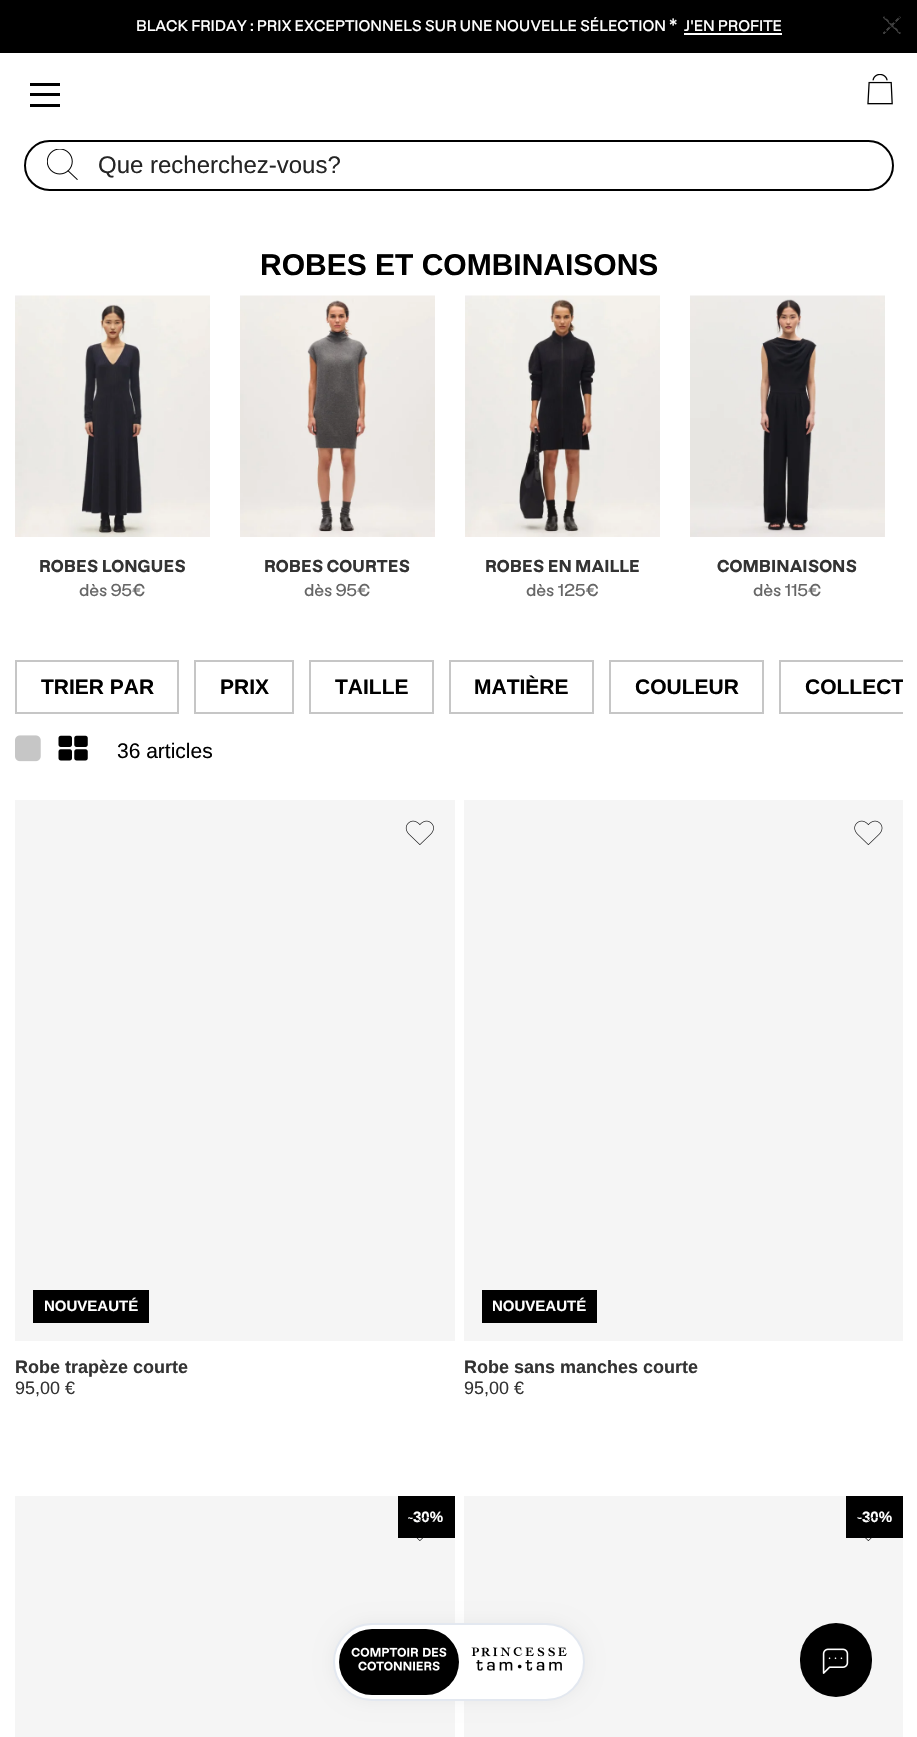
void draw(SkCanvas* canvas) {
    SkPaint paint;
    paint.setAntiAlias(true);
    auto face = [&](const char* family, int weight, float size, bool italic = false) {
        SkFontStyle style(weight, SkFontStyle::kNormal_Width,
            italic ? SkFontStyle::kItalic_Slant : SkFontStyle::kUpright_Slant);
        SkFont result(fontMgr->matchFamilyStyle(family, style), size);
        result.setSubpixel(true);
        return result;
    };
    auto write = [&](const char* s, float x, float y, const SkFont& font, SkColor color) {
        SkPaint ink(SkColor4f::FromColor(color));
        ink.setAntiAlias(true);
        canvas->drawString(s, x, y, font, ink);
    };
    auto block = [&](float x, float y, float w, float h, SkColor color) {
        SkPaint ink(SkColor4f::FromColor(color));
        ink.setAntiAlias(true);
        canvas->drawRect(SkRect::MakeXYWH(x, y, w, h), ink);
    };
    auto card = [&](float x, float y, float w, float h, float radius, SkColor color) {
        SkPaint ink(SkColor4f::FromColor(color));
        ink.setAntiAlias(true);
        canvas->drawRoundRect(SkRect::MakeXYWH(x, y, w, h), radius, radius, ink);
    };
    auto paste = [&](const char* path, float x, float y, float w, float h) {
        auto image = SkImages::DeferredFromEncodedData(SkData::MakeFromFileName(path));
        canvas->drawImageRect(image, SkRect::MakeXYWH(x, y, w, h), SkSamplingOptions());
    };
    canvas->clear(SK_ColorWHITE);
    block(0, 0, 917, 53, SK_ColorBLACK);
    auto kFont1 = face("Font", 400, 15);
    write("BLACK FRIDAY : PRIX EXCEPTIONNELS SUR UNE NOUVELLE SÉLECTION *", 136, 31, kFont1, SK_ColorWHITE);
    write("J'EN PROFITE", 684, 31, kFont1, SK_ColorWHITE);
    block(684, 33, 98, 2, SK_ColorWHITE);
    paste("pic1.png", 883, 16, 18, 18);
    paste("pic2.png", 883, 16, 18, 18);
    block(30, 83, 30, 3, SK_ColorBLACK);
    block(30, 93, 30, 3, SK_ColorBLACK);
    block(30, 104, 30, 3, SK_ColorBLACK);
    paste("pic3.png", 867, 74, 26, 31);
    paint.setStyle(SkPaint::kStroke_Style);
    paint.setStrokeWidth(2);
    paint.setColor(SK_ColorBLACK);
    canvas->drawRoundRect(SkRect::MakeXYWH(25, 141, 868, 49), 24.5f, 24.5f, paint);
    paste("pic4.png", 47, 149, 31, 31);
    auto kFont2 = face("Liberation Sans", 400, 24);
    write("Que recherchez-vous?", 98, 173, kFont2, SkColorSetRGB(37, 37, 37));
    block(15, 1496, 440, 241, SkColorSetRGB(245, 245, 245));
    block(464, 1496, 439, 241, SkColorSetRGB(245, 245, 245));
    paint.setStyle(SkPaint::kFill_Style);
    paint.setColor(SkColorSetARGB(13, 0, 0, 0));
    paint.setMaskFilter(SkMaskFilter::MakeBlur(kNormal_SkBlurStyle, 9));
    canvas->drawRoundRect(SkRect::MakeXYWH(333, 1623, 252, 78), 39, 39, paint);
    paint.setMaskFilter(nullptr);
    paint.setColor(SK_ColorWHITE);
    canvas->drawRoundRect(SkRect::MakeXYWH(334, 1624, 250, 76), 38, 38, paint);
    paint.setStyle(SkPaint::kStroke_Style);
    paint.setColor(SkColorSetRGB(227, 232, 240));
    canvas->drawRoundRect(SkRect::MakeXYWH(334, 1624, 250, 76), 38, 38, paint);
    card(339, 1629, 120, 66, 33, SK_ColorBLACK);
    paste("pic5.png", 351, 1647, 96, 24);
    paste("pic6.png", 471, 1647, 96, 24);
    auto kFont3 = face("Liberation Sans", 700, 30);
    write("ROBES ET COMBINAISONS", 260, 275, kFont3, SK_ColorBLACK);
    paste("pic7.png", 15, 295, 195, 242);
    auto kFont4 = face("Font", 700, 16.75f);
    write("ROBES LONGUES", 39, 572, kFont4, SkColorSetRGB(51, 51, 51));
    auto kFont5 = face("Font", 400, 16.75f);
    write("dès 95€", 79, 596, kFont5, SkColorSetRGB(102, 102, 102));
    paste("pic8.png", 240, 295, 195, 242);
    write("ROBES COURTES", 264, 572, kFont4, SkColorSetRGB(51, 51, 51));
    write("dès 95€", 304, 596, kFont5, SkColorSetRGB(102, 102, 102));
    paste("pic9.png", 465, 295, 195, 242);
    write("ROBES EN MAILLE", 485, 572, kFont4, SkColorSetRGB(51, 51, 51));
    write("dès 125€", 526, 596, kFont5, SkColorSetRGB(102, 102, 102));
    paste("pic10.png", 690, 295, 195, 242);
    write("COMBINAISONS", 717, 572, kFont4, SkColorSetRGB(51, 51, 51));
    write("dès 115€", 753, 596, kFont5, SkColorSetRGB(102, 102, 102));
    paint.setColor(SkColorSetRGB(198, 198, 198));
    canvas->drawRect(SkRect::MakeXYWH(16, 661, 162, 52), paint);
    auto kFont6 = face("Liberation Sans", 700, 21);
    write("TRIER PAR", 41, 694, kFont6, SK_ColorBLACK);
    canvas->drawRect(SkRect::MakeXYWH(195, 661, 98, 52), paint);
    write("PRIX", 220, 694, kFont6, SK_ColorBLACK);
    canvas->drawRect(SkRect::MakeXYWH(310, 661, 123, 52), paint);
    write("TAILLE", 335, 694, kFont6, SK_ColorBLACK);
    canvas->drawRect(SkRect::MakeXYWH(450, 661, 143, 52), paint);
    write("MATIÈRE", 474, 694, kFont6, SK_ColorBLACK);
    canvas->drawRect(SkRect::MakeXYWH(610, 661, 153, 52), paint);
    write("COULEUR", 635, 694, kFont6, SK_ColorBLACK);
    canvas->save();
    canvas->clipRect(SkRect::MakeXYWH(15, 660, 888, 54));
    canvas->drawRect(SkRect::MakeXYWH(780, 661, 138, 52), paint);
    write("COLLECT", 805, 694, kFont6, SK_ColorBLACK);
    canvas->restore();
    paste("pic11.png", 15, 735, 26, 27);
    paste("pic12.png", 58, 735, 30, 26);
    auto kFont7 = face("Liberation Sans", 400, 21);
    write("36 articles", 117, 758, kFont7, SK_ColorBLACK);
    block(15, 800, 440, 541, SkColorSetRGB(245, 245, 245));
    block(33, 1290, 116, 33, SK_ColorBLACK);
    auto kFont8 = face("Liberation Sans", 700, 15);
    write("NOUVEAUTÉ", 44, 1311, kFont8, SK_ColorWHITE);
    paste("pic13.png", 405, 820, 29, 25);
    auto kFont9 = face("Liberation Sans", 700, 18);
    write("Robe trapèze courte", 15, 1373, kFont9, SkColorSetRGB(51, 51, 51));
    auto kFont10 = face("Liberation Sans", 400, 18);
    write("95,00 €", 15, 1394, kFont10, SkColorSetRGB(51, 51, 51));
    block(464, 800, 439, 541, SkColorSetRGB(245, 245, 245));
    block(482, 1290, 115, 33, SK_ColorBLACK);
    write("NOUVEAUTÉ", 492, 1311, kFont8, SK_ColorWHITE);
    paste("pic14.png", 854, 820, 29, 25);
    write("Robe sans manches courte", 464, 1373, kFont9, SkColorSetRGB(51, 51, 51));
    write("95,00 €", 464, 1394, kFont10, SkColorSetRGB(51, 51, 51));
    block(398, 1496, 57, 42, SK_ColorBLACK);
    write("-30%", 408, 1522, kFont8, SK_ColorWHITE);
    paste("pic15.png", 409, 1516, 25, 25);
    block(846, 1496, 57, 42, SK_ColorBLACK);
    write("-30%", 857, 1522, kFont8, SK_ColorWHITE);
    paste("pic16.png", 857, 1516, 25, 25);
    card(800, 1623, 72, 74, 36, SK_ColorBLACK);
    paste("pic17.png", 822, 1648, 27, 26);
}
